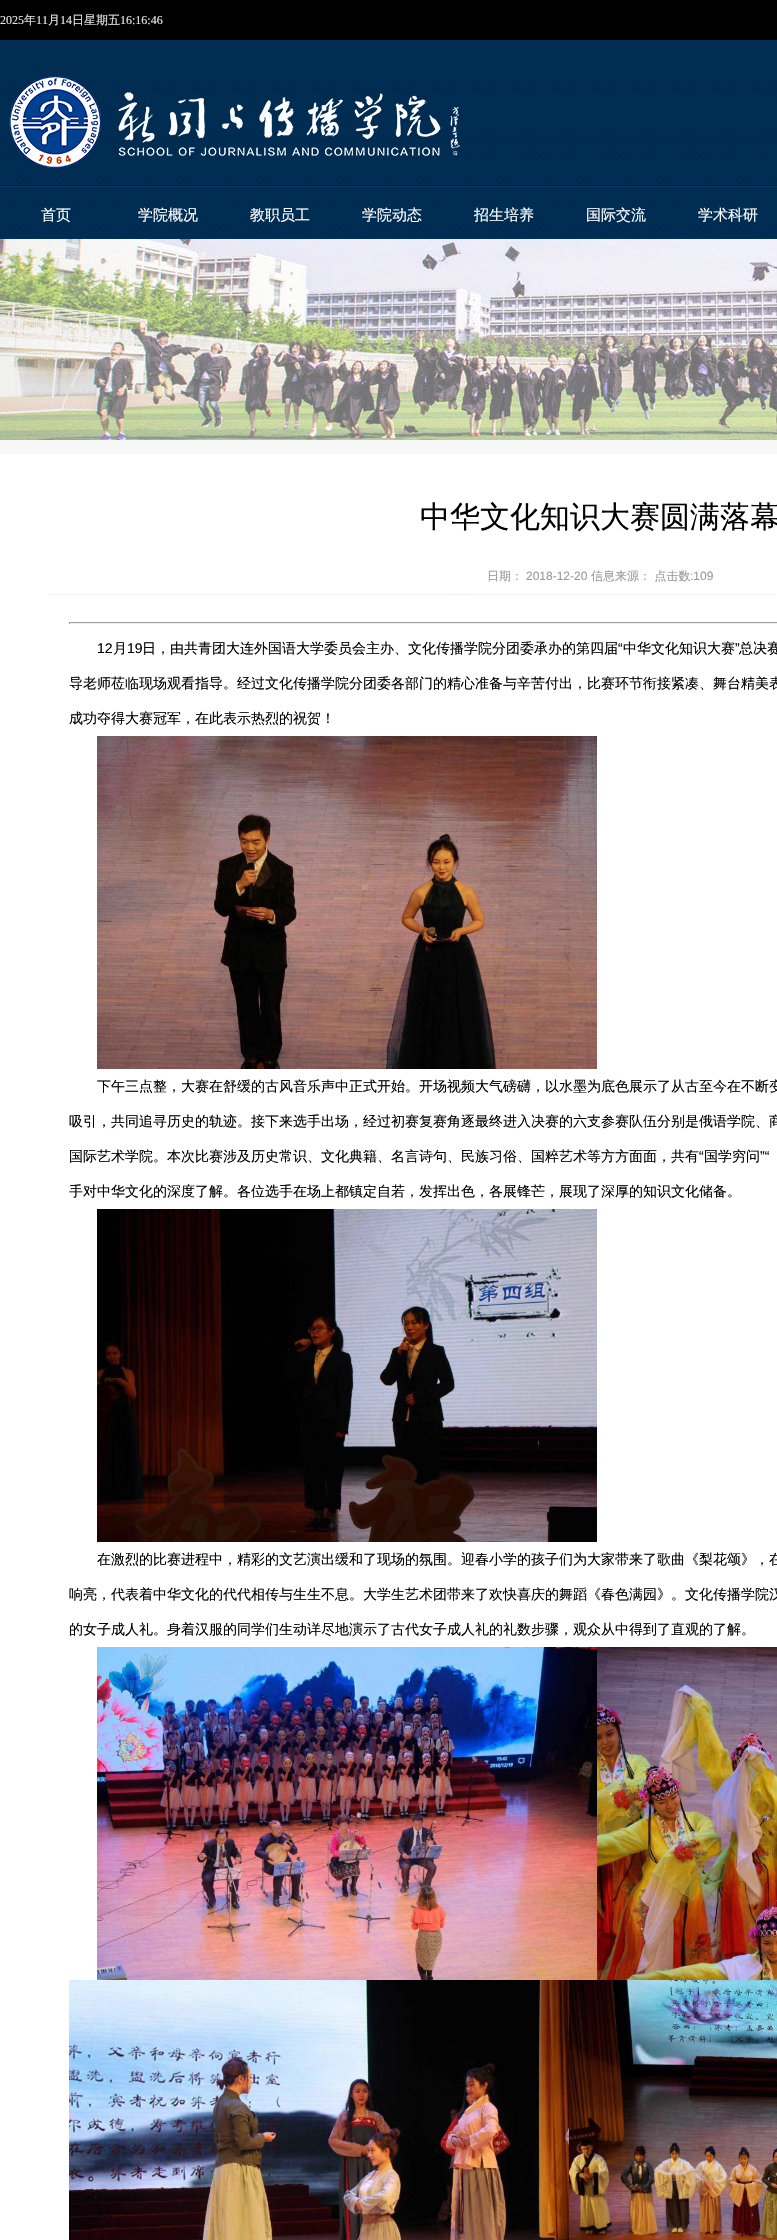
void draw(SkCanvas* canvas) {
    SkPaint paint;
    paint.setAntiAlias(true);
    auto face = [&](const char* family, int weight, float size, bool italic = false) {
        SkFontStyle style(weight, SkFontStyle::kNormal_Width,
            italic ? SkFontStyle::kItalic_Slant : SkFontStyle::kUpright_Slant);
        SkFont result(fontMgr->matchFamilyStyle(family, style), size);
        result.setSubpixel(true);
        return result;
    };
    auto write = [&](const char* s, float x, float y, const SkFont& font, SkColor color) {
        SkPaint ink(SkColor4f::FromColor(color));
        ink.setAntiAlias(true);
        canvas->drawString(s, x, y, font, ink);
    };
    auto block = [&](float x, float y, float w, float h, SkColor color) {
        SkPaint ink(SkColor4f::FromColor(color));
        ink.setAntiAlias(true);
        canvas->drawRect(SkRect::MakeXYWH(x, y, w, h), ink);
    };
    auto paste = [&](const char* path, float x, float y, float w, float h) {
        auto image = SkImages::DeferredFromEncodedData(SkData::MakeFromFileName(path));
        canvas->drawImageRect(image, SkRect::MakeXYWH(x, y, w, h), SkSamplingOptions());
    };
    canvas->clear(SkColorSetRGB(247, 247, 247));
    block(0, 0, 777, 40, SK_ColorBLACK);
    auto kFont1 = face("Liberation Serif", 400, 12);
    write("2025", 0, 24, kFont1, SkColorSetRGB(229, 229, 229));
    auto kFont2 = face("WenQuanYi Zen Hei", 500, 12);
    write("年", 24, 24, kFont2, SkColorSetRGB(229, 229, 229));
    write("11", 36, 24, kFont1, SkColorSetRGB(229, 229, 229));
    write("月", 48, 24, kFont2, SkColorSetRGB(229, 229, 229));
    write("14", 60, 24, kFont1, SkColorSetRGB(229, 229, 229));
    write("日星期五", 72, 24, kFont2, SkColorSetRGB(229, 229, 229));
    write("16:16:46", 120, 24, kFont1, SkColorSetRGB(229, 229, 229));
    paste("pic1.png", 0, 40, 777, 199);
    paste("pic2.png", 9, 76, 451, 92);
    auto kFont3 = face("WenQuanYi Zen Hei", 500, 15);
    write("首页", 41, 220, kFont3, SK_ColorWHITE);
    write("学院概况", 138, 220, kFont3, SK_ColorWHITE);
    write("教职员工", 250, 220, kFont3, SK_ColorWHITE);
    write("学院动态", 362, 220, kFont3, SK_ColorWHITE);
    write("招生培养", 474, 220, kFont3, SK_ColorWHITE);
    write("国际交流", 586, 220, kFont3, SK_ColorWHITE);
    write("学术科研", 698, 220, kFont3, SK_ColorWHITE);
    paste("pic3.png", 0, 239, 777, 201);
    block(0, 454, 777, 1786, SK_ColorWHITE);
    auto kFont4 = face("WenQuanYi Zen Hei", 500, 30);
    write("中华文化知识大赛圆满落幕", 420, 527, kFont4, SK_ColorBLACK);
    paint.setStyle(SkPaint::kStroke_Style);
    paint.setStrokeWidth(1);
    paint.setColor(SkColorSetRGB(231, 231, 231));
    paint.setPathEffect(SkDashPathEffect::Make({{1, 1}}, 0));
    canvas->drawPath(SkPathBuilder().moveTo(49, 594.5f).lineTo(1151, 594.5f).detach(), paint);
    paint.setPathEffect(nullptr);
    write("日期：", 487, 580, kFont2, SkColorSetRGB(153, 153, 153));
    auto kFont5 = face("Liberation Sans", 400, 12);
    write("2018-12-20", 526, 580, kFont5, SkColorSetRGB(153, 153, 153));
    write("信息来源： 点击数", 591, 580, kFont2, SkColorSetRGB(153, 153, 153));
    write(":109", 690, 580, kFont5, SkColorSetRGB(153, 153, 153));
    block(69, 622, 708, 1, SkColorSetRGB(159, 159, 159));
    block(69, 623, 708, 1, SkColorSetRGB(238, 238, 238));
    block(69, 622, 1, 2, SkColorSetRGB(159, 159, 159));
    auto kFont6 = face("Liberation Sans", 400, 14);
    write("12", 97, 653, kFont6, SK_ColorBLACK);
    auto kFont7 = face("WenQuanYi Zen Hei", 500, 14);
    write("月", 113, 653, kFont7, SK_ColorBLACK);
    write("19", 127, 653, kFont6, SK_ColorBLACK);
    write("日，由共青团大连外国语大学委员会主办、文化传播学院分团委承办的第四届", 142, 653, kFont7, SK_ColorBLACK);
    write("“", 618, 653, kFont6, SK_ColorBLACK);
    write("中华文化知识大赛", 623, 653, kFont7, SK_ColorBLACK);
    write("”", 735, 653, kFont6, SK_ColorBLACK);
    write("总决赛", 739, 653, kFont7, SK_ColorBLACK);
    write("导老师莅临现场观看指导。经过文化传播学院分团委各部门的精心准备与辛苦付出，比赛环节衔接紧凑、舞台精美表", 69, 688, kFont7, SK_ColorBLACK);
    write("成功夺得大赛冠军，在此表示热烈的祝贺！", 69, 723, kFont7, SK_ColorBLACK);
    paste("pic4.png", 97, 736, 500, 333);
    write("下午三点整，大赛在舒缓的古风音乐声中正式开始。开场视频大气磅礴，以水墨为底色展示了从古至今在不断变", 97, 1091, kFont7, SK_ColorBLACK);
    write("吸引，共同追寻历史的轨迹。接下来选手出场，经过初赛复赛角逐最终进入决赛的六支参赛队伍分别是俄语学院、商", 69, 1126, kFont7, SK_ColorBLACK);
    write("国际艺术学院。本次比赛涉及历史常识、文化典籍、名言诗句、民族习俗、国粹艺术等方方面面，共有", 69, 1161, kFont7, SK_ColorBLACK);
    write("“", 699, 1161, kFont6, SK_ColorBLACK);
    write("国学穷问", 704, 1161, kFont7, SK_ColorBLACK);
    write("”“", 760, 1161, kFont6, SK_ColorBLACK);
    write("手对中华文化的深度了解。各位选手在场上都镇定自若，发挥出色，各展锋芒，展现了深厚的知识文化储备。", 69, 1196, kFont7, SK_ColorBLACK);
    paste("pic5.png", 97, 1209, 500, 333);
    write("在激烈的比赛进程中，精彩的文艺演出缓和了现场的氛围。迎春小学的孩子们为大家带来了歌曲《梨花颂》，在", 97, 1564, kFont7, SK_ColorBLACK);
    write("响亮，代表着中华文化的代代相传与生生不息。大学生艺术团带来了欢快喜庆的舞蹈《春色满园》。文化传播学院汉", 69, 1599, kFont7, SK_ColorBLACK);
    write("的女子成人礼。身着汉服的同学们生动详尽地演示了古代女子成人礼的礼数步骤，观众从中得到了直观的了解。", 69, 1634, kFont7, SK_ColorBLACK);
    paste("pic6.png", 97, 1647, 500, 333);
    paste("pic7.png", 597, 1647, 180, 333);
    paste("pic8.png", 69, 1980, 500, 260);
    paste("pic9.png", 569, 1980, 208, 260);
}
